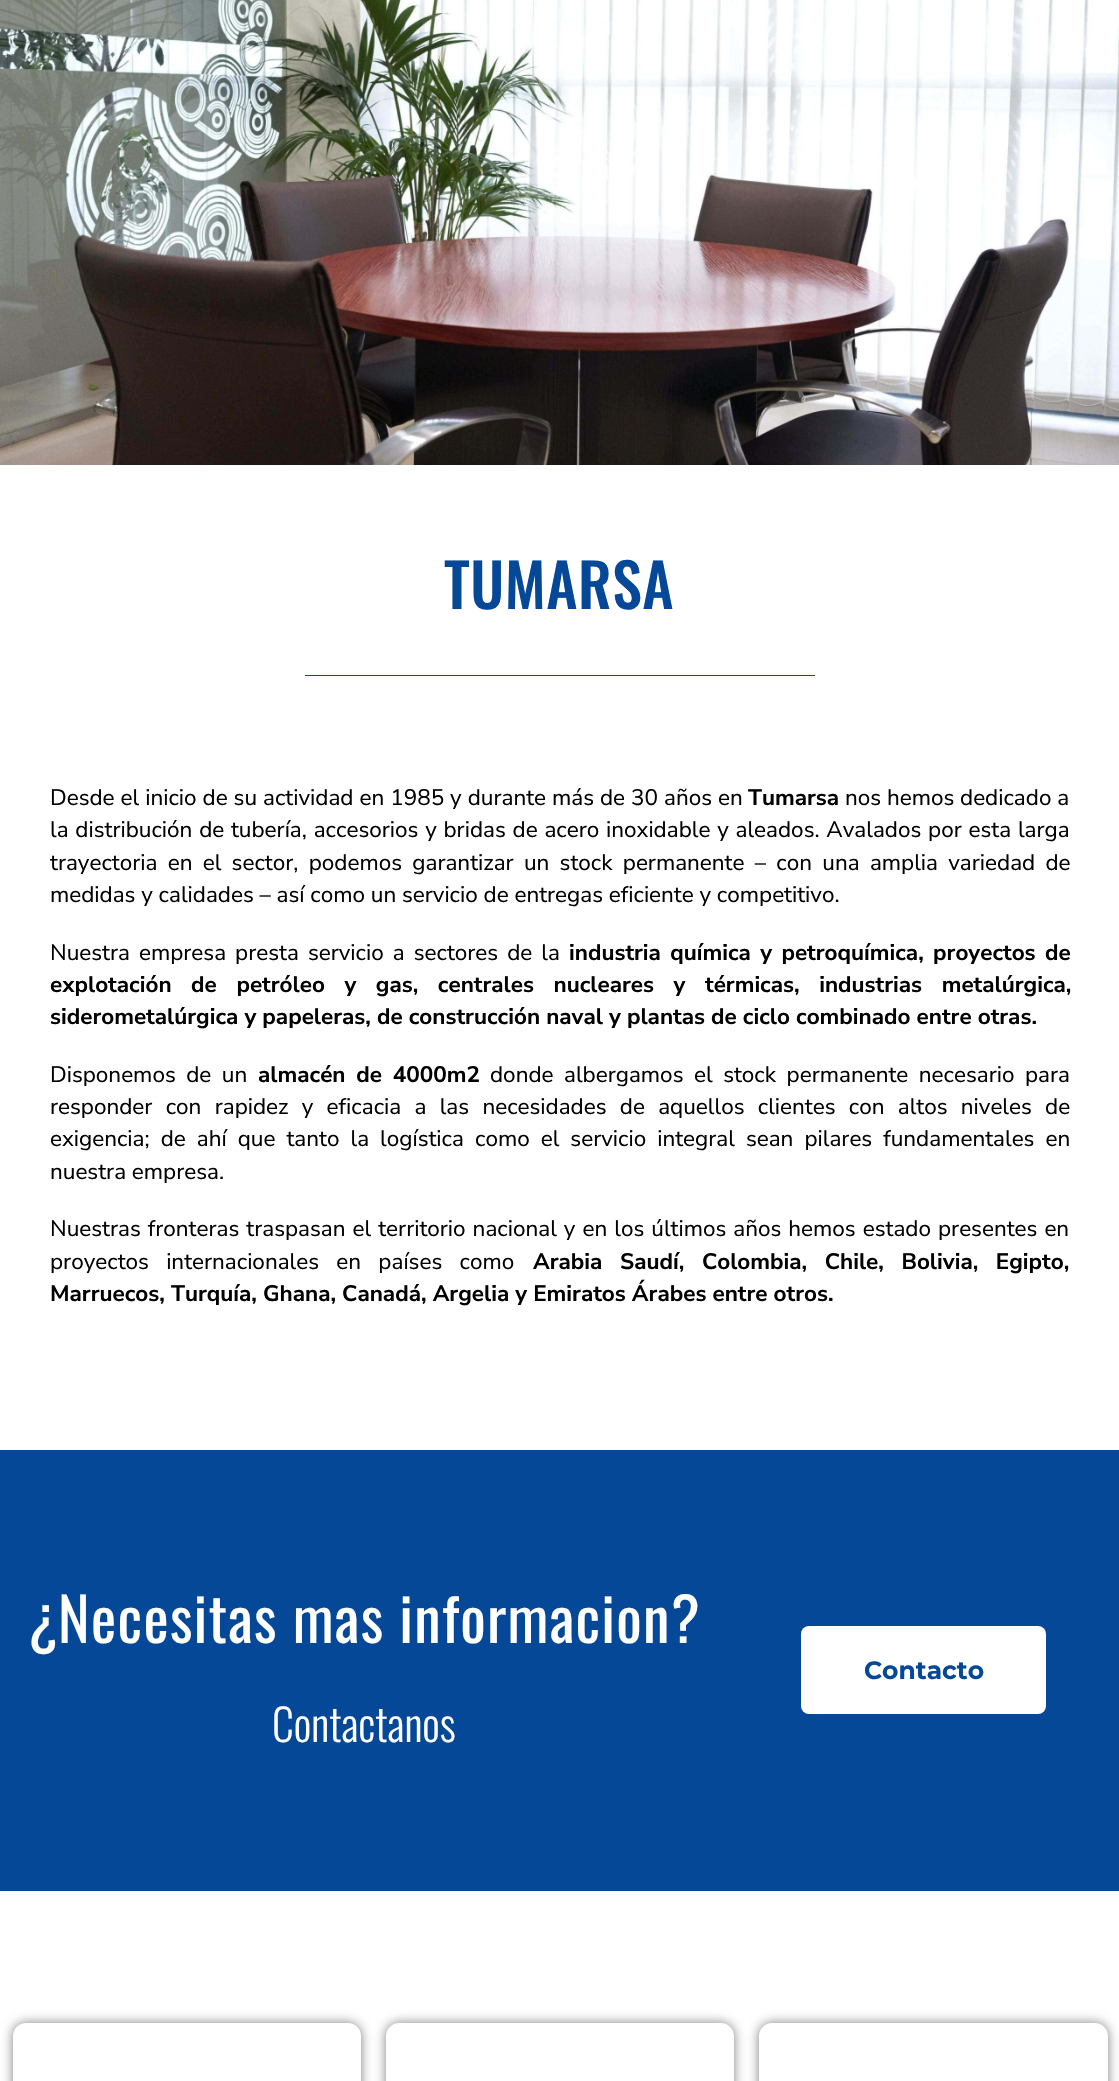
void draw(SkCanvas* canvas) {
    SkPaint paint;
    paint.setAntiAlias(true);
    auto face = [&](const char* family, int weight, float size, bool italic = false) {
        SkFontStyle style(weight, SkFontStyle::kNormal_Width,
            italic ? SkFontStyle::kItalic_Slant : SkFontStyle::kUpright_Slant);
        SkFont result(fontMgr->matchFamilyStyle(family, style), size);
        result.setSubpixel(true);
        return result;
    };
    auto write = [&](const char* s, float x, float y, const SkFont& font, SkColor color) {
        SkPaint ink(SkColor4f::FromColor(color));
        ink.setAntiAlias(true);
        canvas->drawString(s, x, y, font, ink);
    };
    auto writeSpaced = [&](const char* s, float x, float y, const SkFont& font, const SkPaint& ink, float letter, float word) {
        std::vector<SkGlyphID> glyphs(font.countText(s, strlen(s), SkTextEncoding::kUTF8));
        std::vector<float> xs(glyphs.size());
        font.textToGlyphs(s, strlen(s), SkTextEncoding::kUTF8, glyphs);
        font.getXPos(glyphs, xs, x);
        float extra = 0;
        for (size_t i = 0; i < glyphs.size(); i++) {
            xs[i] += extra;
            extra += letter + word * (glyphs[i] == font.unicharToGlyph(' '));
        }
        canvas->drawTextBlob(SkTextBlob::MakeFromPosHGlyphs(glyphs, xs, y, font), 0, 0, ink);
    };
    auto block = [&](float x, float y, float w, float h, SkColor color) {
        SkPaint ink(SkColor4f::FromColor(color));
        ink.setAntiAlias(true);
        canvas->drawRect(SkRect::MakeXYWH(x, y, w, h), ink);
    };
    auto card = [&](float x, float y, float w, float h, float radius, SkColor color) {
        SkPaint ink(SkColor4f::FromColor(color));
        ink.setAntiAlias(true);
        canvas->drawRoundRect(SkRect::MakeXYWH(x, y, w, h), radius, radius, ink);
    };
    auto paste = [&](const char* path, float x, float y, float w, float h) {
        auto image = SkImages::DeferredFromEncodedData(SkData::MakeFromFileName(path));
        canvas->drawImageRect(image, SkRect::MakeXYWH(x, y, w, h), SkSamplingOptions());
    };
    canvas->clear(SK_ColorWHITE);
    paste("pic1.png", 0, 0, 1119, 465);
    auto kFont1 = face("Oswald", 500, 60);
    paint.setColor(SkColorSetRGB(5, 72, 151));
    writeSpaced("TUMARSA", 444, 609, kFont1, paint, 0.5f, 0);
    block(305, 675, 510, 1, SkColorSetRGB(5, 72, 151));
    auto kFont2 = face("Nunito Sans", 400, 22.5f);
    paint.setColor(SK_ColorBLACK);
    writeSpaced("Desde el inicio de su actividad en 1985 y durante más de 30 años en", 50, 805, kFont2, paint, 0, 0.2f);
    auto kFont3 = face("Nunito Sans", 700, 22.5f);
    write("Tumarsa", 748, 805, kFont3, SK_ColorBLACK);
    write("nos hemos dedicado a", 845, 805, kFont2, SK_ColorBLACK);
    writeSpaced("la distribución de tubería, accesorios y bridas de acero inoxidable y aleados. Avalados por esta larga", 50, 837, kFont2, paint, 0, 1);
    writeSpaced("trayectoria en el sector, podemos garantizar un stock permanente – con una amplia variedad de", 50, 870, kFont2, paint, 0, 4.5f);
    write("medidas y calidades – así como un servicio de entregas eficiente y competitivo.", 50, 902, kFont2, SK_ColorBLACK);
    writeSpaced("Nuestra empresa presta servicio a sectores de la", 50, 960, kFont2, paint, 0, 3.25f);
    writeSpaced("industria química y petroquímica, proyectos de", 569, 960, kFont3, paint, 0, 3.25f);
    writeSpaced("explotación de petróleo y gas, centrales nucleares y térmicas, industrias metalúrgica,", 50, 992, kFont3, paint, 0, 13.5f);
    write("siderometalúrgica y papeleras, de construcción naval y plantas de ciclo combinado entre otras.", 50, 1024, kFont3, SK_ColorBLACK);
    writeSpaced("Disponemos de un", 50, 1082, kFont2, paint, 0, 4.75f);
    writeSpaced("almacén de 4000m2", 258, 1082, kFont3, paint, 0, 4.75f);
    writeSpaced("donde albergamos el stock permanente necesario para", 490, 1082, kFont2, paint, 0, 4.75f);
    writeSpaced("responder con rapidez y eficacia a las necesidades de aquellos clientes con altos niveles de", 50, 1114, kFont2, paint, 0, 7.5f);
    writeSpaced("exigencia; de ahí que tanto la logística como el servicio integral sean pilares fundamentales en", 50, 1146, kFont2, paint, 0, 5.25f);
    write("nuestra empresa.", 50, 1179, kFont2, SK_ColorBLACK);
    writeSpaced("Nuestras fronteras traspasan el territorio nacional y en los últimos años hemos estado presentes en", 50, 1236, kFont2, paint, 0, 1.25f);
    writeSpaced("proyectos internacionales en países como", 50, 1269, kFont2, paint, 0, 11.5f);
    writeSpaced("Arabia Saudí, Colombia, Chile, Bolivia, Egipto,", 533, 1269, kFont3, paint, 0, 11.5f);
    write("Marruecos, Turquía, Ghana, Canadá, Argelia y Emiratos Árabes entre otros.", 50, 1301, kFont3, SK_ColorBLACK);
    block(0, 1450, 1119, 441, SkColorSetRGB(5, 72, 151));
    auto kFont4 = face("Oswald", 400, 60);
    paint.setColor(SK_ColorWHITE);
    writeSpaced("¿Necesitas mas informacion?", 28, 1643, kFont4, paint, 1.25f, 0);
    auto kFont5 = face("Oswald", 300, 43.75f);
    write("Contactanos", 272, 1742, kFont5, SK_ColorWHITE);
    card(801, 1626, 245, 88, 8, SK_ColorWHITE);
    auto kFont6 = face("Montserrat", 700, 25);
    write("Contacto", 864, 1679, kFont6, SkColorSetRGB(5, 72, 151));
    paint.setColor(SkColorSetARGB(128, 0, 0, 0));
    paint.setMaskFilter(SkMaskFilter::MakeBlur(kNormal_SkBlurStyle, 6));
    canvas->drawRoundRect(SkRect::MakeXYWH(13, 2023, 348, 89), 13, 13, paint);
    paint.setMaskFilter(nullptr);
    card(13, 2023, 348, 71, 13, SK_ColorWHITE);
    canvas->save();
    canvas->clipPath(SkPathBuilder(SkPathFillType::kEvenOdd).moveTo(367, 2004).lineTo(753, 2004).lineTo(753, 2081).lineTo(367, 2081).close().moveTo(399, 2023).lineTo(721, 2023).cubicTo(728, 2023, 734, 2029, 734, 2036).lineTo(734, 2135).cubicTo(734, 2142, 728, 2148, 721, 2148).lineTo(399, 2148).cubicTo(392, 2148, 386, 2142, 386, 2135).lineTo(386, 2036).cubicTo(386, 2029, 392, 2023, 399, 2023).close().detach(), true);
    paint.setMaskFilter(SkMaskFilter::MakeBlur(kNormal_SkBlurStyle, 6));
    canvas->drawRoundRect(SkRect::MakeXYWH(386, 2023, 348, 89), 13, 13, paint);
    paint.setMaskFilter(nullptr);
    canvas->restore();
    canvas->save();
    canvas->clipPath(SkPathBuilder(SkPathFillType::kEvenOdd).moveTo(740, 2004).lineTo(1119, 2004).lineTo(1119, 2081).lineTo(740, 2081).close().moveTo(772, 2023).lineTo(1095, 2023).cubicTo(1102, 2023, 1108, 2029, 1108, 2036).lineTo(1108, 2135).cubicTo(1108, 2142, 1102, 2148, 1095, 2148).lineTo(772, 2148).cubicTo(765, 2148, 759, 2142, 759, 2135).lineTo(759, 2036).cubicTo(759, 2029, 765, 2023, 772, 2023).close().detach(), true);
    paint.setMaskFilter(SkMaskFilter::MakeBlur(kNormal_SkBlurStyle, 6));
    canvas->drawRoundRect(SkRect::MakeXYWH(759, 2023, 349, 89), 13, 13, paint);
    paint.setMaskFilter(nullptr);
    canvas->restore();
}
